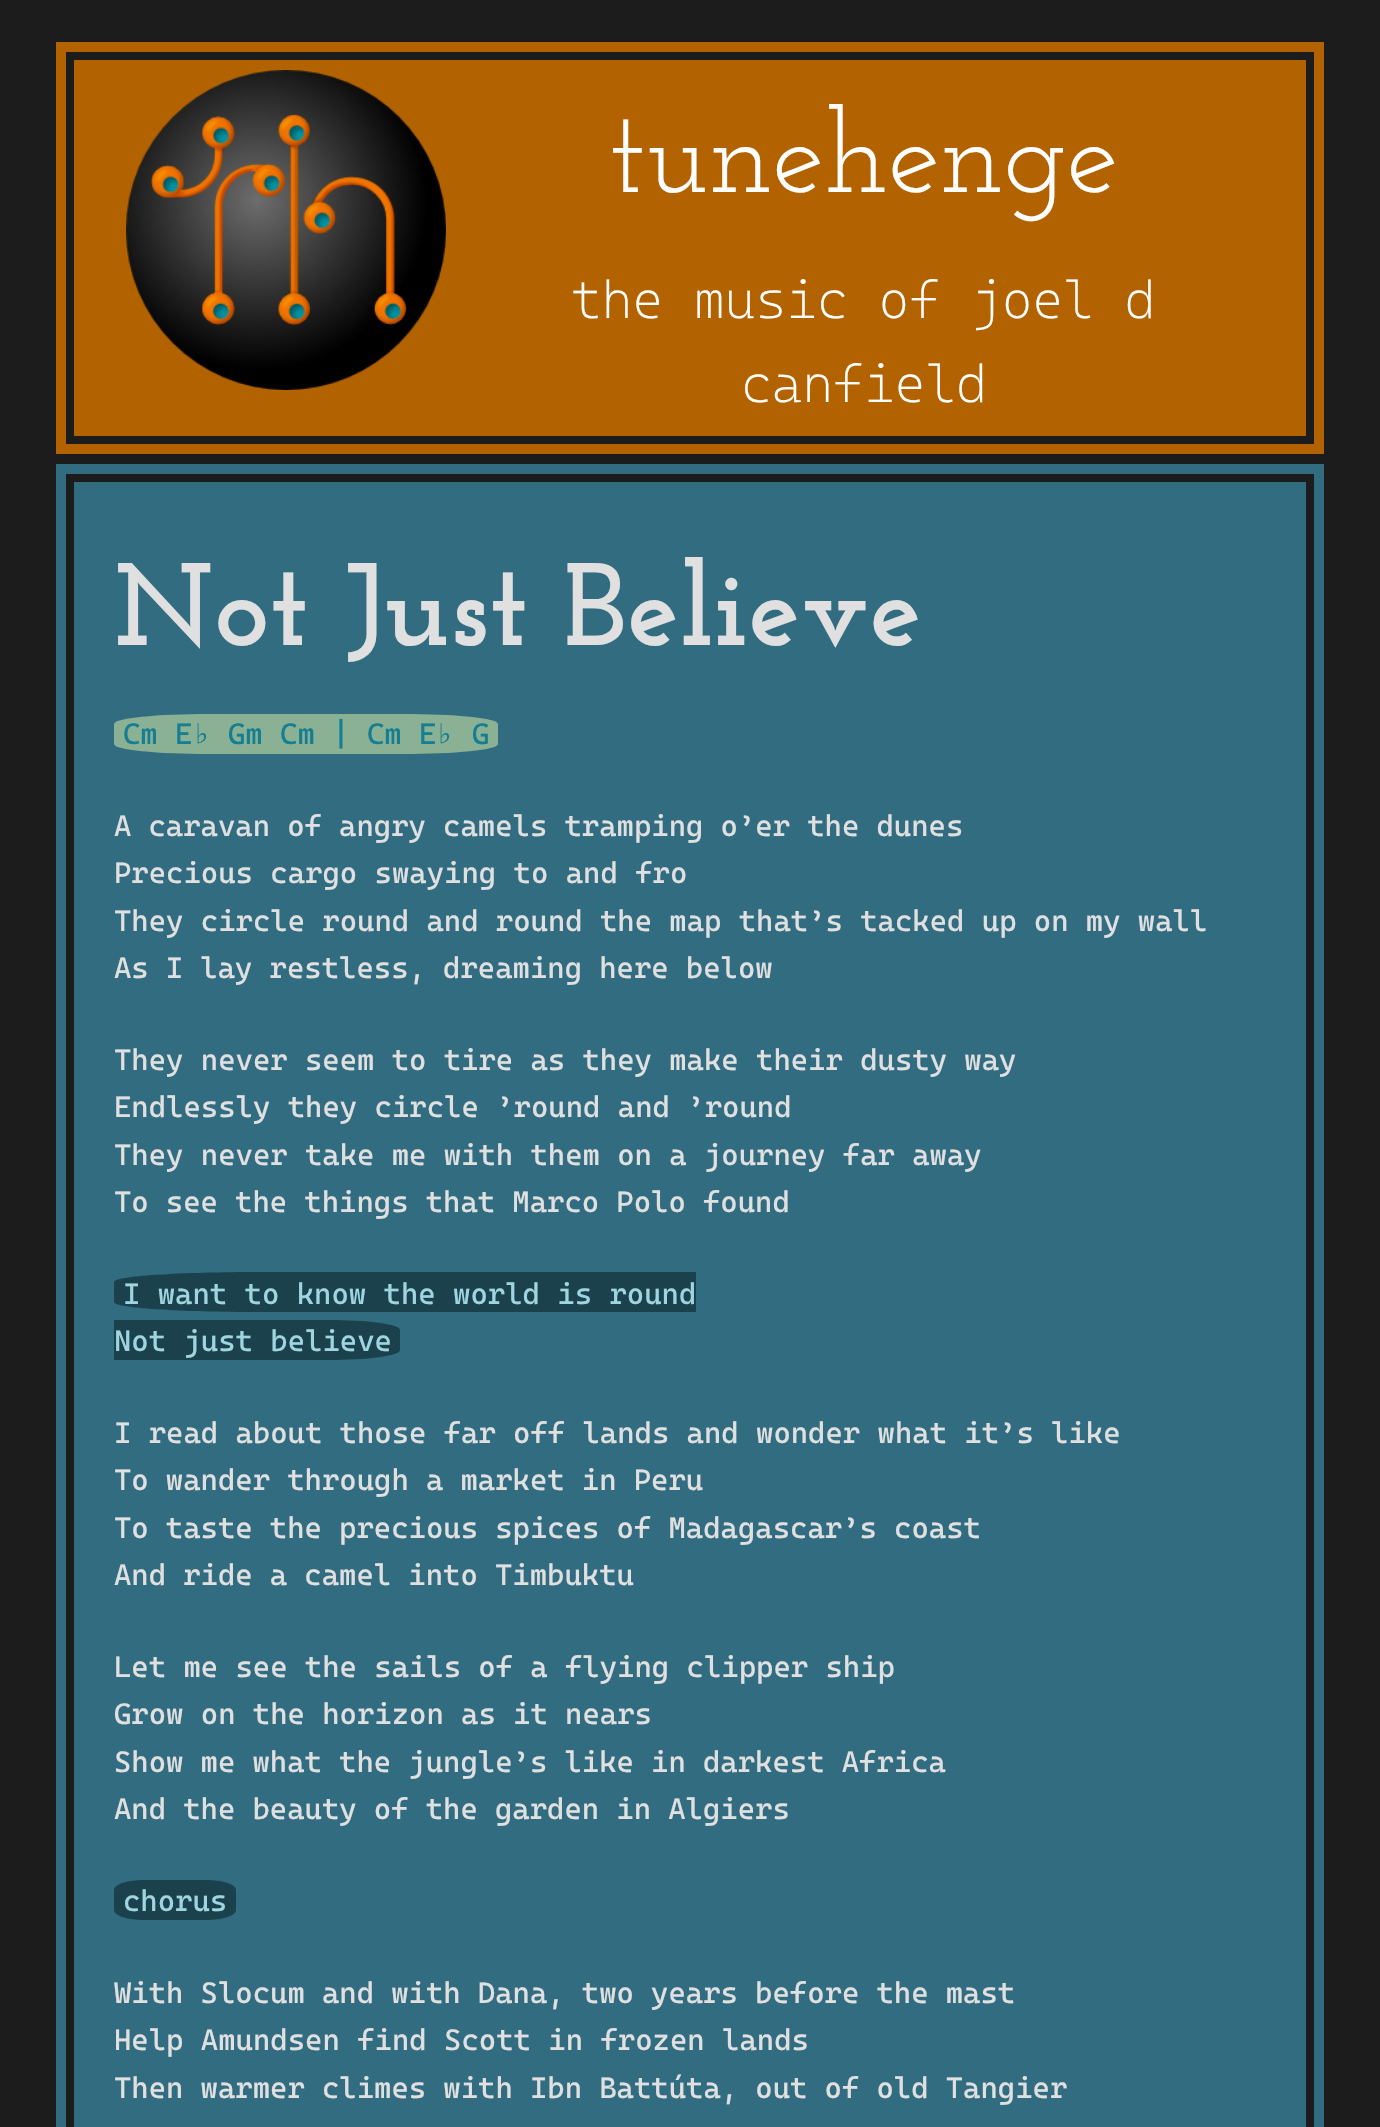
void draw(SkCanvas* canvas) {
    SkPaint paint;
    paint.setAntiAlias(true);
    auto face = [&](const char* family, int weight, float size, bool italic = false) {
        SkFontStyle style(weight, SkFontStyle::kNormal_Width,
            italic ? SkFontStyle::kItalic_Slant : SkFontStyle::kUpright_Slant);
        SkFont result(fontMgr->matchFamilyStyle(family, style), size);
        result.setSubpixel(true);
        return result;
    };
    auto write = [&](const char* s, float x, float y, const SkFont& font, SkColor color) {
        SkPaint ink(SkColor4f::FromColor(color));
        ink.setAntiAlias(true);
        canvas->drawString(s, x, y, font, ink);
    };
    auto writeSpaced = [&](const char* s, float x, float y, const SkFont& font, const SkPaint& ink, float letter, float word) {
        std::vector<SkGlyphID> glyphs(font.countText(s, strlen(s), SkTextEncoding::kUTF8));
        std::vector<float> xs(glyphs.size());
        font.textToGlyphs(s, strlen(s), SkTextEncoding::kUTF8, glyphs);
        font.getXPos(glyphs, xs, x);
        float extra = 0;
        for (size_t i = 0; i < glyphs.size(); i++) {
            xs[i] += extra;
            extra += letter + word * (glyphs[i] == font.unicharToGlyph(' '));
        }
        canvas->drawTextBlob(SkTextBlob::MakeFromPosHGlyphs(glyphs, xs, y, font), 0, 0, ink);
    };
    auto block = [&](float x, float y, float w, float h, SkColor color) {
        SkPaint ink(SkColor4f::FromColor(color));
        ink.setAntiAlias(true);
        canvas->drawRect(SkRect::MakeXYWH(x, y, w, h), ink);
    };
    auto paste = [&](const char* path, float x, float y, float w, float h) {
        auto image = SkImages::DeferredFromEncodedData(SkData::MakeFromFileName(path));
        canvas->drawImageRect(image, SkRect::MakeXYWH(x, y, w, h), SkSamplingOptions());
    };
    canvas->clear(SkColorSetRGB(28, 28, 28));
    block(56, 42, 1268, 412, SkColorSetRGB(179, 98, 0));
    paste("pic1.png", 126, 70, 320, 320);
    paint.setStyle(SkPaint::kStroke_Style);
    paint.setStrokeWidth(8);
    paint.setColor(SkColorSetRGB(28, 28, 28));
    canvas->drawRect(SkRect::MakeXYWH(70, 56, 1240, 384), paint);
    auto kFont1 = face("Josefin Slab", 400, 117.25f);
    write("tunehenge", 609, 192, kFont1, SK_ColorWHITE);
    auto kFont2 = face("Cascadia Code", 200, 52.5f);
    write("the music of joel d", 571, 318, kFont2, SK_ColorWHITE);
    write("canfield", 741, 402, kFont2, SK_ColorWHITE);
    block(56, 464, 1268, 1663, SkColorSetRGB(49, 108, 129));
    canvas->drawRect(SkRect::MakeXYWH(70, 478, 1240, 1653), paint);
    auto kFont3 = face("Josefin Slab", 700, 117.25f);
    write("Not Just Believe", 114, 645, kFont3, SkColorSetRGB(224, 224, 224));
    paint.setStyle(SkPaint::kFill_Style);
    paint.setColor(SkColorSetRGB(138, 177, 147));
    canvas->drawPath(SkPathBuilder().moveTo(210, 714).lineTo(402, 714).cubicTo(455, 714, 498, 718, 498, 724).lineTo(498, 744).cubicTo(498, 750, 455, 754, 402, 754).lineTo(210, 754).cubicTo(157, 754, 114, 750, 114, 744).lineTo(114, 724).cubicTo(114, 718, 157, 714, 210, 714).close().detach(), paint);
    auto kFont4 = face("Cascadia Code", 400, 29.65f);
    write("Cm E", 123, 744, kFont4, SkColorSetRGB(21, 126, 147));
    auto kFont5 = face("DejaVu Sans Mono", 400, 29.65f);
    write("♭", 193, 744, kFont5, SkColorSetRGB(21, 126, 147));
    write("Gm Cm | Cm E", 228, 744, kFont4, SkColorSetRGB(21, 126, 147));
    write("♭", 436, 744, kFont5, SkColorSetRGB(21, 126, 147));
    write("G", 472, 744, kFont4, SkColorSetRGB(21, 126, 147));
    paint.setColor(SkColorSetRGB(224, 224, 224));
    writeSpaced("A caravan of angry camels tramping o’er the dunes", 114, 836, kFont4, paint, 0, -0.25f);
    write("Precious cargo swaying to and fro", 114, 883, kFont4, SkColorSetRGB(224, 224, 224));
    writeSpaced("They circle round and round the map that’s tacked up on my wall", 114, 931, kFont4, paint, 0, -0.1f);
    writeSpaced("As I lay restless, dreaming here below", 114, 978, kFont4, paint, 0, -0.25f);
    writeSpaced("They never seem to tire as they make their dusty way", 114, 1070, kFont4, paint, 0, -0.1f);
    write("Endlessly they circle ’round and ’round", 114, 1117, kFont4, SkColorSetRGB(224, 224, 224));
    writeSpaced("They never take me with them on a journey far away", 114, 1165, kFont4, paint, 0, -0.1f);
    writeSpaced("To see the things that Marco Polo found", 114, 1212, kFont4, paint, 0, -0.25f);
    paint.setColor(SkColorSetRGB(26, 65, 76));
    canvas->drawPath(SkPathBuilder().moveTo(260, 1272).lineTo(696, 1272).lineTo(696, 1312).lineTo(260, 1312).cubicTo(179, 1312, 114, 1308, 114, 1302).lineTo(114, 1282).cubicTo(114, 1276, 179, 1272, 260, 1272).close().detach(), paint);
    write("I want to know the world is round", 123, 1304, kFont4, SkColorSetRGB(159, 213, 223));
    canvas->drawPath(SkPathBuilder().moveTo(114, 1320).lineTo(328, 1320).cubicTo(368, 1320, 400, 1324, 400, 1330).lineTo(400, 1350).cubicTo(400, 1356, 368, 1360, 328, 1360).lineTo(114, 1360).close().detach(), paint);
    write("Not just believe", 114, 1351, kFont4, SkColorSetRGB(159, 213, 223));
    paint.setColor(SkColorSetRGB(224, 224, 224));
    writeSpaced("I read about those far off lands and wonder what it’s like", 114, 1443, kFont4, paint, 0, -0.1f);
    writeSpaced("To wander through a market in Peru", 114, 1490, kFont4, paint, 0, -0.25f);
    writeSpaced("To taste the precious spices of Madagascar’s coast", 114, 1538, kFont4, paint, 0, -0.25f);
    writeSpaced("And ride a camel into Timbuktu", 114, 1585, kFont4, paint, 0, -0.25f);
    writeSpaced("Let me see the sails of a flying clipper ship", 114, 1677, kFont4, paint, 0, -0.1f);
    writeSpaced("Grow on the horizon as it nears", 114, 1724, kFont4, paint, 0, -0.1f);
    writeSpaced("Show me what the jungle’s like in darkest Africa", 114, 1772, kFont4, paint, 0, -0.25f);
    writeSpaced("And the beauty of the garden in Algiers", 114, 1819, kFont4, paint, 0, -0.25f);
    paint.setColor(SkColorSetRGB(26, 65, 76));
    canvas->drawPath(SkPathBuilder().moveTo(144, 1880).lineTo(206, 1880).cubicTo(222, 1880, 236, 1884, 236, 1890).lineTo(236, 1910).cubicTo(236, 1916, 222, 1920, 206, 1920).lineTo(144, 1920).cubicTo(128, 1920, 114, 1916, 114, 1910).lineTo(114, 1890).cubicTo(114, 1884, 128, 1880, 144, 1880).close().detach(), paint);
    write("chorus", 123, 1911, kFont4, SkColorSetRGB(159, 213, 223));
    paint.setColor(SkColorSetRGB(224, 224, 224));
    writeSpaced("With Slocum and with Dana, two years before the mast", 114, 2003, kFont4, paint, 0, -0.25f);
    write("Help Amundsen find Scott in frozen lands", 114, 2050, kFont4, SkColorSetRGB(224, 224, 224));
    writeSpaced("Then warmer climes with Ibn Battúta, out of old Tangier", 114, 2098, kFont4, paint, 0, -0.25f);
}
